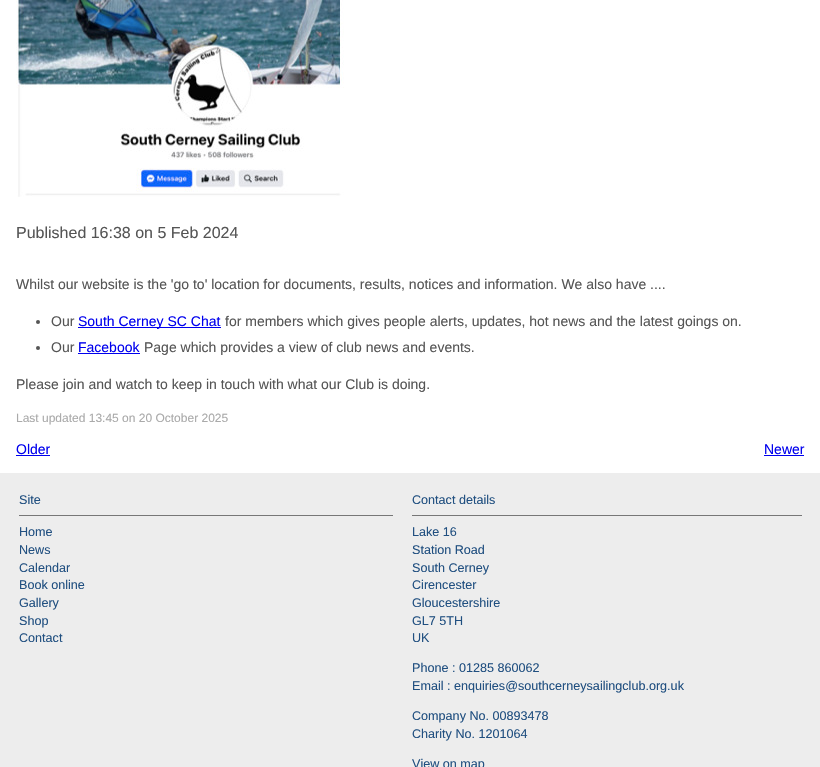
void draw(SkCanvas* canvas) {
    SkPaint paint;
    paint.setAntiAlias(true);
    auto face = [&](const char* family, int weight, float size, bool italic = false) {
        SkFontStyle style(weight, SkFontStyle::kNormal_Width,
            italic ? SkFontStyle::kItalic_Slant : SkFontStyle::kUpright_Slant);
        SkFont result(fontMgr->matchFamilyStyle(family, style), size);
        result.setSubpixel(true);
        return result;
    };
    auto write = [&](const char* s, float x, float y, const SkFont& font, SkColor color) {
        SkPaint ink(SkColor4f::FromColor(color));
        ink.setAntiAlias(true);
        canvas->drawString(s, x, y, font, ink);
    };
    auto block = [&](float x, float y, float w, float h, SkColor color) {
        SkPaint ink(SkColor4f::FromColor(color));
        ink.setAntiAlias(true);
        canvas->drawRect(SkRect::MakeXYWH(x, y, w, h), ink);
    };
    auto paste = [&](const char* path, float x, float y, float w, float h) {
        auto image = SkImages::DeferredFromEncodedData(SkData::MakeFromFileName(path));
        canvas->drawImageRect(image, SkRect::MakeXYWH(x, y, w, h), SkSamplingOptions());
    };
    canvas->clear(SK_ColorWHITE);
    paste("pic1.png", 16, 0, 328, 197);
    auto kFont1 = face("Liberation Sans", 400, 16);
    write("Published 16:38 on 5 Feb 2024", 16, 238, kFont1, SkColorSetRGB(85, 85, 85));
    auto kFont2 = face("Liberation Sans", 400, 14);
    write("Whilst our website is the 'go to' location for documents, results, notices and information. We also have ....", 16, 289, kFont2, SkColorSetRGB(85, 85, 85));
    paint.setColor(SkColorSetRGB(85, 85, 85));
    canvas->drawCircle(38, 322, 2, paint);
    write("Our", 51, 326, kFont2, SkColorSetRGB(85, 85, 85));
    block(78, 327, 143, 1, SkColorSetRGB(0, 0, 238));
    write("South Cerney SC Chat", 78, 326, kFont2, SkColorSetRGB(0, 0, 238));
    write("for members which gives people alerts, updates, hot news and the latest goings on.", 225, 326, kFont2, SkColorSetRGB(85, 85, 85));
    canvas->drawCircle(38, 348, 2, paint);
    write("Our", 51, 352, kFont2, SkColorSetRGB(85, 85, 85));
    write("Facebook", 78, 352, kFont2, SkColorSetRGB(0, 0, 238));
    block(78, 353, 62, 1, SkColorSetRGB(0, 0, 238));
    write("Page which provides a view of club news and events.", 144, 352, kFont2, SkColorSetRGB(85, 85, 85));
    write("Please join and watch to keep in touch with what our Club is doing.", 16, 389, kFont2, SkColorSetRGB(85, 85, 85));
    auto kFont3 = face("Liberation Sans", 400, 12);
    write("Last updated 13:45 on 20 October 2025", 16, 422, kFont3, SkColorSetRGB(170, 170, 170));
    write("Older", 16, 454, kFont2, SkColorSetRGB(0, 0, 238));
    block(16, 455, 34, 1, SkColorSetRGB(0, 0, 238));
    write("Newer", 764, 454, kFont2, SkColorSetRGB(0, 0, 238));
    block(764, 455, 40, 1, SkColorSetRGB(0, 0, 238));
    block(0, 473, 820, 294, SkColorSetRGB(237, 237, 237));
    block(19, 515, 374, 1, SkColorSetRGB(119, 119, 119));
    auto kFont4 = face("Liberation Sans", 400, 12.6f);
    write("Site", 19, 504, kFont4, SkColorSetRGB(32, 79, 128));
    write("Home", 19, 536, kFont4, SkColorSetRGB(32, 79, 128));
    write("News", 19, 554, kFont4, SkColorSetRGB(32, 79, 128));
    write("Calendar", 19, 572, kFont4, SkColorSetRGB(32, 79, 128));
    write("Book online", 19, 589, kFont4, SkColorSetRGB(32, 79, 128));
    write("Gallery", 19, 607, kFont4, SkColorSetRGB(32, 79, 128));
    write("Shop", 19, 625, kFont4, SkColorSetRGB(32, 79, 128));
    write("Contact", 19, 642, kFont4, SkColorSetRGB(32, 79, 128));
    block(412, 515, 390, 1, SkColorSetRGB(119, 119, 119));
    write("Contact details", 412, 504, kFont4, SkColorSetRGB(32, 79, 128));
    write("Lake 16", 412, 536, kFont4, SkColorSetRGB(32, 79, 128));
    write("Station Road", 412, 554, kFont4, SkColorSetRGB(32, 79, 128));
    write("South Cerney", 412, 572, kFont4, SkColorSetRGB(32, 79, 128));
    write("Cirencester", 412, 589, kFont4, SkColorSetRGB(32, 79, 128));
    write("Gloucestershire", 412, 607, kFont4, SkColorSetRGB(32, 79, 128));
    write("GL7 5TH", 412, 625, kFont4, SkColorSetRGB(32, 79, 128));
    write("UK", 412, 642, kFont4, SkColorSetRGB(32, 79, 128));
    write("Phone : 01285 860062", 412, 672, kFont4, SkColorSetRGB(32, 79, 128));
    write("Email : enquiries@southcerneysailingclub.org.uk", 412, 690, kFont4, SkColorSetRGB(32, 79, 128));
    write("Company No. 00893478", 412, 720, kFont4, SkColorSetRGB(32, 79, 128));
    write("Charity No. 1201064", 412, 738, kFont4, SkColorSetRGB(32, 79, 128));
    write("View on map", 412, 768, kFont4, SkColorSetRGB(32, 79, 128));
}
